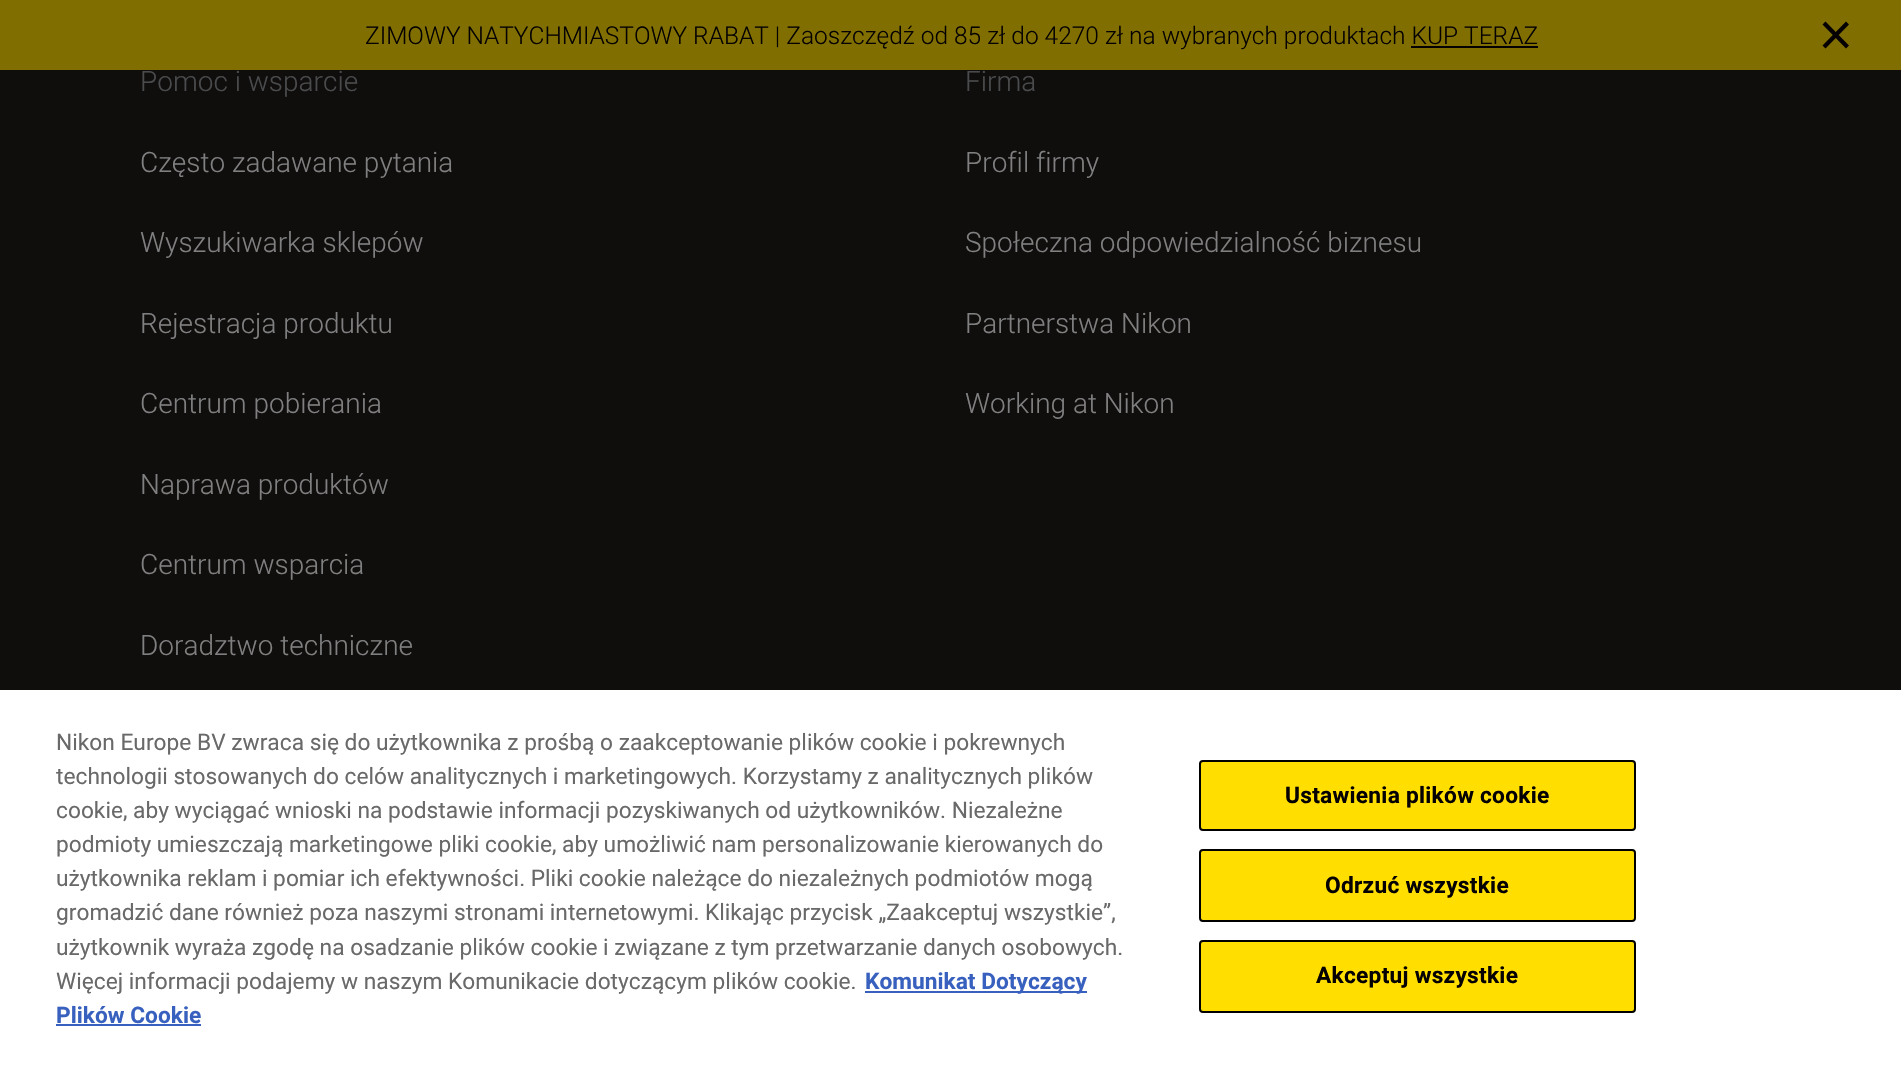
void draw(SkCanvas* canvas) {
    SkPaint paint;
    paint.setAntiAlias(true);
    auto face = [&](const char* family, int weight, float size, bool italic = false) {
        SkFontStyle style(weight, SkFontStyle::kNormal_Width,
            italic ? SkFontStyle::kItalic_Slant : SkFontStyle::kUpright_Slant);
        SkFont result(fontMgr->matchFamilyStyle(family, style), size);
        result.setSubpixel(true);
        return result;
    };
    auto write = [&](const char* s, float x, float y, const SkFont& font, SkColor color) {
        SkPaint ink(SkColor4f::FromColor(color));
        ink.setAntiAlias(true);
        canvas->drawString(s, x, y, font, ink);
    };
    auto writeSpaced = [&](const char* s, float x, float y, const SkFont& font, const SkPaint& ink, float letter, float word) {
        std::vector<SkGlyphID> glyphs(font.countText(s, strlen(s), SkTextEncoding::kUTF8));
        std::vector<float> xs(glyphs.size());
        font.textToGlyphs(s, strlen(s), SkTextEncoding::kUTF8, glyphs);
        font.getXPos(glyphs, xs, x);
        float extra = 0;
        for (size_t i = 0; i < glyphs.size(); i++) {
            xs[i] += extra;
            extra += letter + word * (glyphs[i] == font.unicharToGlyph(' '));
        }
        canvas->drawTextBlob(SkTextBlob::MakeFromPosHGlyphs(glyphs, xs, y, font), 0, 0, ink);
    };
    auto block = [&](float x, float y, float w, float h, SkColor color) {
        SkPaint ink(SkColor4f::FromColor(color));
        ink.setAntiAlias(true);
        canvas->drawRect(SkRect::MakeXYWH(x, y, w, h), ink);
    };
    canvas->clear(SkColorSetRGB(16, 13, 13));
    block(0, 0, 1901, 70, SkColorSetRGB(128, 111, 0));
    auto kFont1 = face("Roboto", 300, 24.5f);
    write("ZIMOWY NATYCHMIASTOWY RABAT | Zaoszczędź od 85 zł do 4270 zł na wybranych produktach KUP TERAZ", 365, 44, kFont1, SkColorSetRGB(5, 1, 2));
    block(1411, 46, 127, 2, SkColorSetRGB(5, 1, 2));
    paint.setColor(SkColorSetRGB(5, 1, 2));
    canvas->drawPath(SkPathBuilder().moveTo(1822.5f, 45.5f).lineTo(1846, 21.5f).lineTo(1849, 24.5f).lineTo(1825.5f, 48.5f).close().detach(), paint);
    canvas->drawPath(SkPathBuilder().moveTo(1846, 48.5f).lineTo(1822.5f, 24.5f).lineTo(1825.5f, 21.5f).lineTo(1849, 45.5f).close().detach(), paint);
    auto kFont2 = face("Roboto", 300, 28);
    write("Pomoc i wsparcie", 140, 91, kFont2, SkColorSetRGB(74, 75, 76));
    write("Często zadawane pytania", 140, 172, kFont2, SkColorSetRGB(128, 128, 128));
    write("Wyszukiwarka sklepów", 140, 252, kFont2, SkColorSetRGB(128, 128, 128));
    write("Rejestracja produktu", 140, 333, kFont2, SkColorSetRGB(128, 128, 128));
    write("Centrum pobierania", 140, 413, kFont2, SkColorSetRGB(128, 128, 128));
    write("Naprawa produktów", 140, 494, kFont2, SkColorSetRGB(128, 128, 128));
    write("Centrum wsparcia", 140, 574, kFont2, SkColorSetRGB(128, 128, 128));
    write("Doradztwo techniczne", 140, 655, kFont2, SkColorSetRGB(128, 128, 128));
    write("Firma", 965, 91, kFont2, SkColorSetRGB(74, 75, 76));
    write("Profil firmy", 965, 172, kFont2, SkColorSetRGB(128, 128, 128));
    write("Społeczna odpowiedzialność biznesu", 965, 252, kFont2, SkColorSetRGB(128, 128, 128));
    write("Partnerstwa Nikon", 965, 333, kFont2, SkColorSetRGB(128, 128, 128));
    write("Working at Nikon", 965, 413, kFont2, SkColorSetRGB(128, 128, 128));
    block(0, 690, 1901, 382, SK_ColorWHITE);
    auto kFont3 = face("Roboto", 400, 22.75f);
    write("Nikon Europe BV zwraca się do użytkownika z prośbą o zaakceptowanie plików cookie i pokrewnych", 56, 750, kFont3, SkColorSetRGB(105, 105, 105));
    write("technologii stosowanych do celów analitycznych i marketingowych. Korzystamy z analitycznych plików", 56, 784, kFont3, SkColorSetRGB(105, 105, 105));
    write("cookie, aby wyciągać wnioski na podstawie informacji pozyskiwanych od użytkowników. Niezależne", 56, 818, kFont3, SkColorSetRGB(105, 105, 105));
    write("podmioty umieszczają marketingowe pliki cookie, aby umożliwić nam personalizowanie kierowanych do", 56, 852, kFont3, SkColorSetRGB(105, 105, 105));
    write("użytkownika reklam i pomiar ich efektywności. Pliki cookie należące do niezależnych podmiotów mogą", 56, 886, kFont3, SkColorSetRGB(105, 105, 105));
    write("gromadzić dane również poza naszymi stronami internetowymi. Klikając przycisk „Zaakceptuj wszystkie”,", 56, 920, kFont3, SkColorSetRGB(105, 105, 105));
    write("użytkownik wyraża zgodę na osadzanie plików cookie i związane z tym przetwarzanie danych osobowych.", 56, 955, kFont3, SkColorSetRGB(105, 105, 105));
    write("Więcej informacji podajemy w naszym Komunikacie dotyczącym plików cookie.", 56, 989, kFont3, SkColorSetRGB(105, 105, 105));
    block(865, 991, 222, 2, SkColorSetRGB(56, 96, 190));
    auto kFont4 = face("Roboto", 700, 22.75f);
    write("Komunikat Dotyczący", 865, 989, kFont4, SkColorSetRGB(56, 96, 190));
    write("Plików Cookie", 56, 1023, kFont4, SkColorSetRGB(56, 96, 190));
    block(56, 1024, 145, 2, SkColorSetRGB(56, 96, 190));
    paint.setColor(SkColorSetRGB(255, 222, 0));
    canvas->drawRoundRect(SkRect::MakeXYWH(1200, 761, 435, 69), 3, 3, paint);
    paint.setStyle(SkPaint::kStroke_Style);
    paint.setStrokeWidth(2);
    paint.setColor(SK_ColorBLACK);
    canvas->drawRoundRect(SkRect::MakeXYWH(1200, 761, 435, 69), 3, 3, paint);
    paint.setStyle(SkPaint::kFill_Style);
    paint.setColor(SkColorSetRGB(5, 1, 2));
    writeSpaced("Ustawienia plików cookie", 1285, 803, kFont4, paint, 0.25f, 0);
    paint.setColor(SkColorSetRGB(255, 222, 0));
    canvas->drawRoundRect(SkRect::MakeXYWH(1200, 850, 435, 71), 3, 3, paint);
    paint.setStyle(SkPaint::kStroke_Style);
    paint.setColor(SK_ColorBLACK);
    canvas->drawRoundRect(SkRect::MakeXYWH(1200, 850, 435, 71), 3, 3, paint);
    paint.setStyle(SkPaint::kFill_Style);
    paint.setColor(SkColorSetRGB(5, 1, 2));
    writeSpaced("Odrzuć wszystkie", 1325, 893, kFont4, paint, 0.25f, 0);
    paint.setColor(SkColorSetRGB(255, 222, 0));
    canvas->drawRoundRect(SkRect::MakeXYWH(1200, 941, 435, 71), 3, 3, paint);
    paint.setStyle(SkPaint::kStroke_Style);
    paint.setColor(SK_ColorBLACK);
    canvas->drawRoundRect(SkRect::MakeXYWH(1200, 941, 435, 71), 3, 3, paint);
    paint.setStyle(SkPaint::kFill_Style);
    paint.setColor(SkColorSetRGB(5, 1, 2));
    writeSpaced("Akceptuj wszystkie", 1316, 983, kFont4, paint, 0.25f, 0);
}
